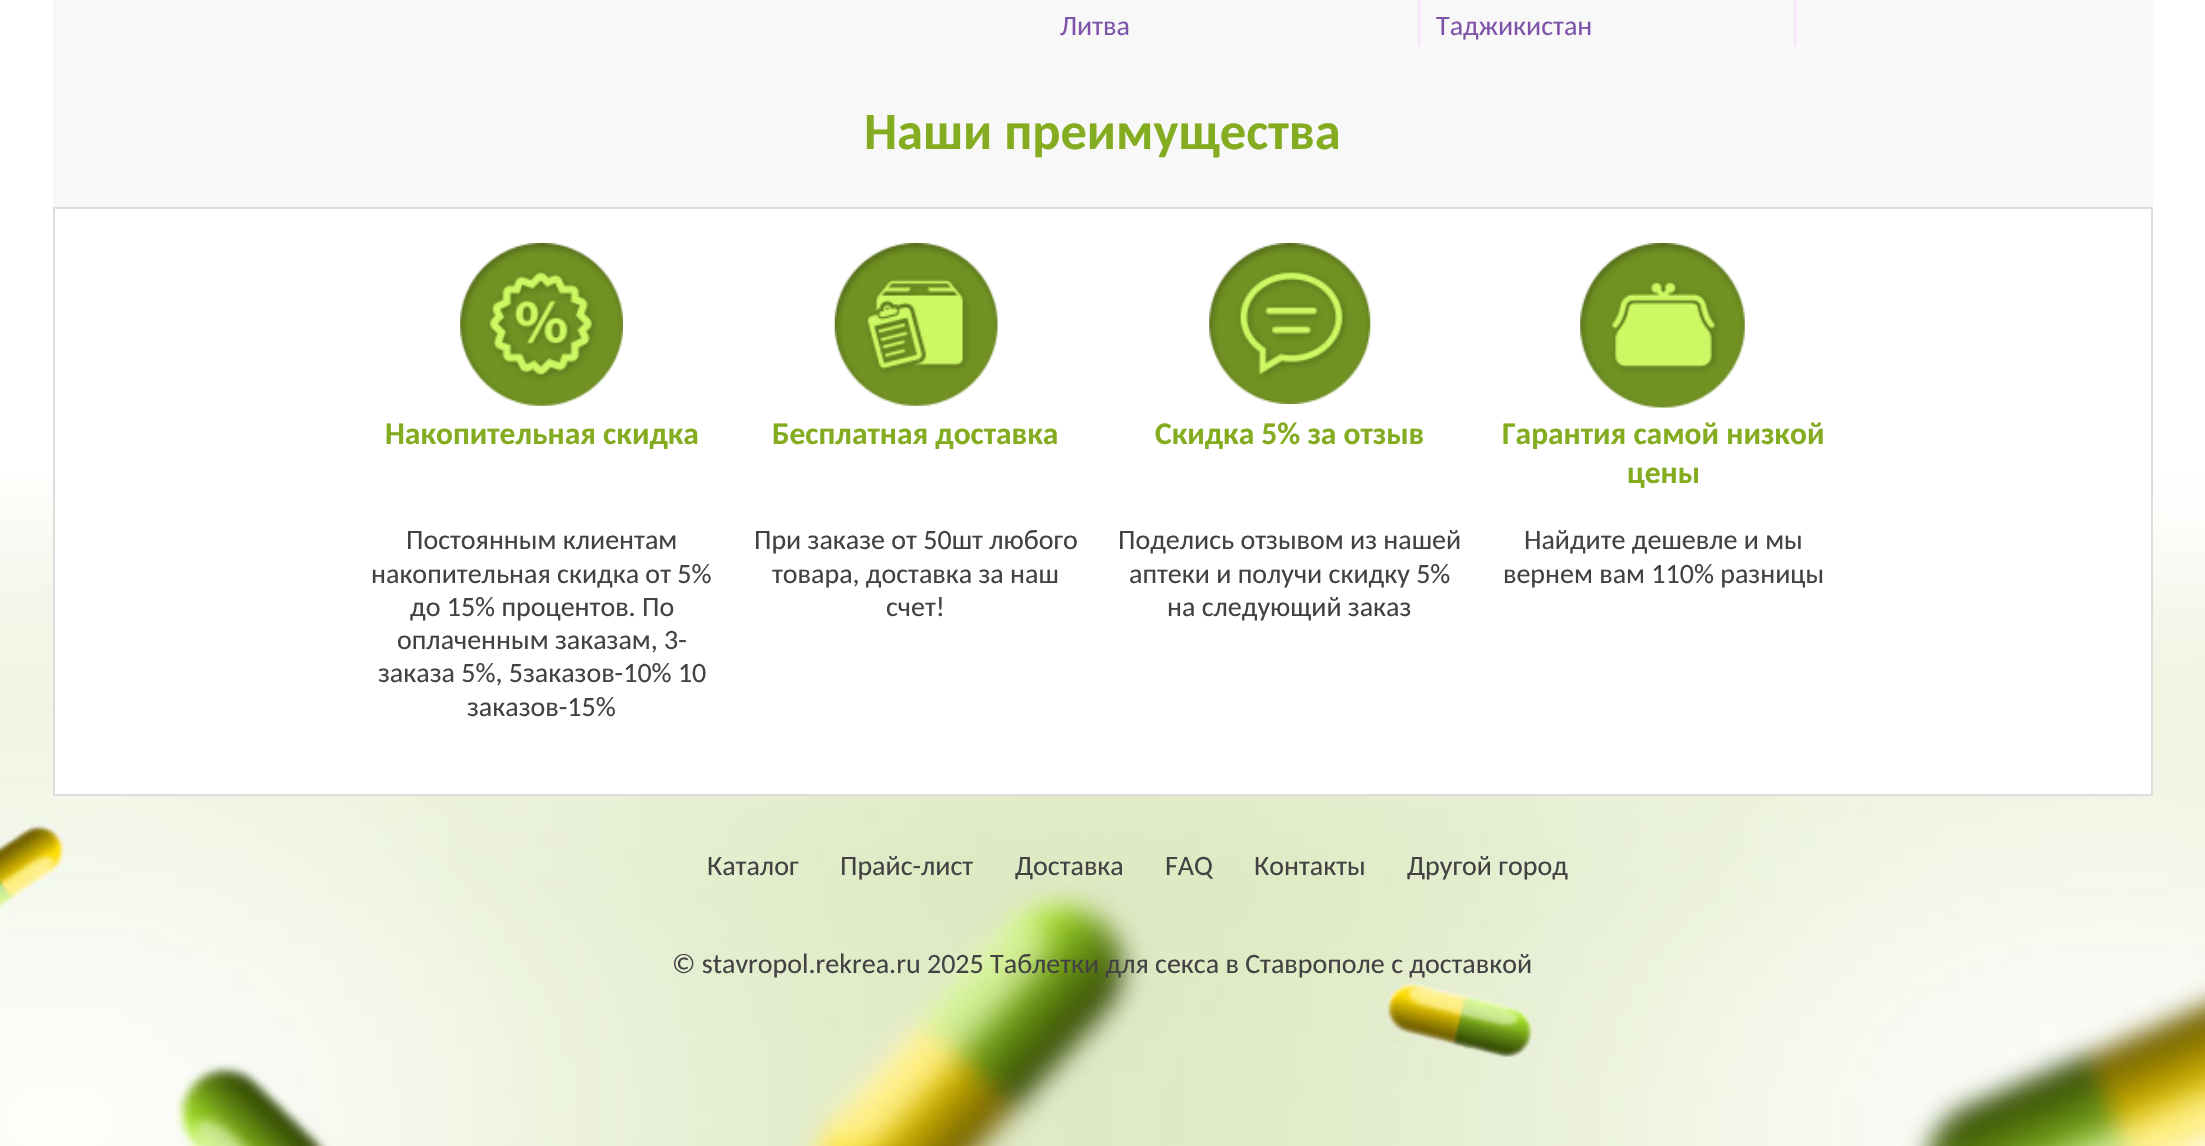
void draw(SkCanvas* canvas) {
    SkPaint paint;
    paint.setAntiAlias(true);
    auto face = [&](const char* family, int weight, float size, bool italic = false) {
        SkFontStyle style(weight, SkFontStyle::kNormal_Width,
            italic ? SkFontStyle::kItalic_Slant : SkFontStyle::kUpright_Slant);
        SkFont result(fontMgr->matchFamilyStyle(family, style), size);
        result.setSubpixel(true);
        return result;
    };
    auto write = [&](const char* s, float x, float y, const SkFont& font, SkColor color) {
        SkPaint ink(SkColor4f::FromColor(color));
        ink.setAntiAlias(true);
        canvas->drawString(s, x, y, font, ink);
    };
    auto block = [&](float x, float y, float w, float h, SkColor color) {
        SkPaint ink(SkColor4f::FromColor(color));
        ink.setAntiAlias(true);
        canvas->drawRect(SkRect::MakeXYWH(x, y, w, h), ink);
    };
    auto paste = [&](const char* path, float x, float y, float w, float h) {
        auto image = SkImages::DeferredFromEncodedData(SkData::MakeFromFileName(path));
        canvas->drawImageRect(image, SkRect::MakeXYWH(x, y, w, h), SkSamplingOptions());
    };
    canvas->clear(SK_ColorWHITE);
    paste("pic1.png", 0, 475, 2205, 671);
    block(53, 0, 2100, 207, SkColorSetRGB(248, 248, 248));
    auto kFont1 = face("Carlito", 400, 28);
    write("Литва", 1060, 35, kFont1, SkColorSetRGB(126, 84, 171));
    block(1418, 0, 2, 46, SkColorSetRGB(248, 225, 251));
    write("Таджикистан", 1436, 35, kFont1, SkColorSetRGB(126, 84, 171));
    block(1794, 0, 2, 46, SkColorSetRGB(248, 225, 251));
    auto kFont2 = face("Carlito", 700, 52.5f);
    write("Наши преимущества", 864, 149, kFont2, SkColorSetRGB(132, 172, 32));
    block(55, 475, 2096, 319, SK_ColorWHITE);
    paint.setStyle(SkPaint::kStroke_Style);
    paint.setStrokeWidth(2);
    paint.setColor(SkColorSetRGB(221, 221, 221));
    canvas->drawRect(SkRect::MakeXYWH(54, 208, 2098, 587), paint);
    paste("pic2.png", 460, 243, 163, 163);
    auto kFont3 = face("Carlito", 700, 31.5f);
    write("Накопительная скидка", 385, 444, kFont3, SkColorSetRGB(132, 172, 32));
    write("Постоянным клиентам", 406, 549, kFont1, SkColorSetRGB(66, 66, 66));
    write("накопительная скидка от 5%", 371, 583, kFont1, SkColorSetRGB(66, 66, 66));
    write("до 15% процентов. По", 410, 616, kFont1, SkColorSetRGB(66, 66, 66));
    write("оплаченным заказам, 3-", 397, 649, kFont1, SkColorSetRGB(66, 66, 66));
    write("заказа 5%, 5заказов-10% 10", 378, 682, kFont1, SkColorSetRGB(66, 66, 66));
    write("заказов-15%", 467, 716, kFont1, SkColorSetRGB(66, 66, 66));
    paste("pic3.png", 834, 243, 164, 163);
    write("Бесплатная доставка", 772, 444, kFont3, SkColorSetRGB(132, 172, 32));
    write("При заказе от 50шт любого", 754, 549, kFont1, SkColorSetRGB(66, 66, 66));
    write("товара, доставка за наш", 772, 583, kFont1, SkColorSetRGB(66, 66, 66));
    write("счет!", 886, 616, kFont1, SkColorSetRGB(66, 66, 66));
    paste("pic4.png", 1209, 243, 162, 161);
    write("Скидка 5% за отзыв", 1155, 444, kFont3, SkColorSetRGB(132, 172, 32));
    write("Поделись отзывом из нашей", 1118, 549, kFont1, SkColorSetRGB(66, 66, 66));
    write("аптеки и получи скидку 5%", 1129, 583, kFont1, SkColorSetRGB(66, 66, 66));
    write("на следующий заказ", 1167, 616, kFont1, SkColorSetRGB(66, 66, 66));
    paste("pic5.png", 1580, 243, 165, 165);
    write("Гарантия самой низкой", 1502, 444, kFont3, SkColorSetRGB(132, 172, 32));
    write("цены", 1627, 483, kFont3, SkColorSetRGB(132, 172, 32));
    write("Найдите дешевле и мы", 1524, 549, kFont1, SkColorSetRGB(66, 66, 66));
    write("вернем вам 110% разницы", 1503, 583, kFont1, SkColorSetRGB(66, 66, 66));
    write("Каталог", 707, 875, kFont1, SkColorSetRGB(66, 66, 66));
    write("Прайс-лист", 840, 875, kFont1, SkColorSetRGB(66, 66, 66));
    write("Доставка", 1015, 875, kFont1, SkColorSetRGB(66, 66, 66));
    write("FAQ", 1165, 875, kFont1, SkColorSetRGB(66, 66, 66));
    write("Контакты", 1254, 875, kFont1, SkColorSetRGB(66, 66, 66));
    write("Другой город", 1407, 875, kFont1, SkColorSetRGB(66, 66, 66));
    write("© stavropol.rekrea.ru 2025 Таблетки для секса в Ставрополе с доставкой", 672, 973, kFont1, SkColorSetRGB(66, 66, 66));
}
